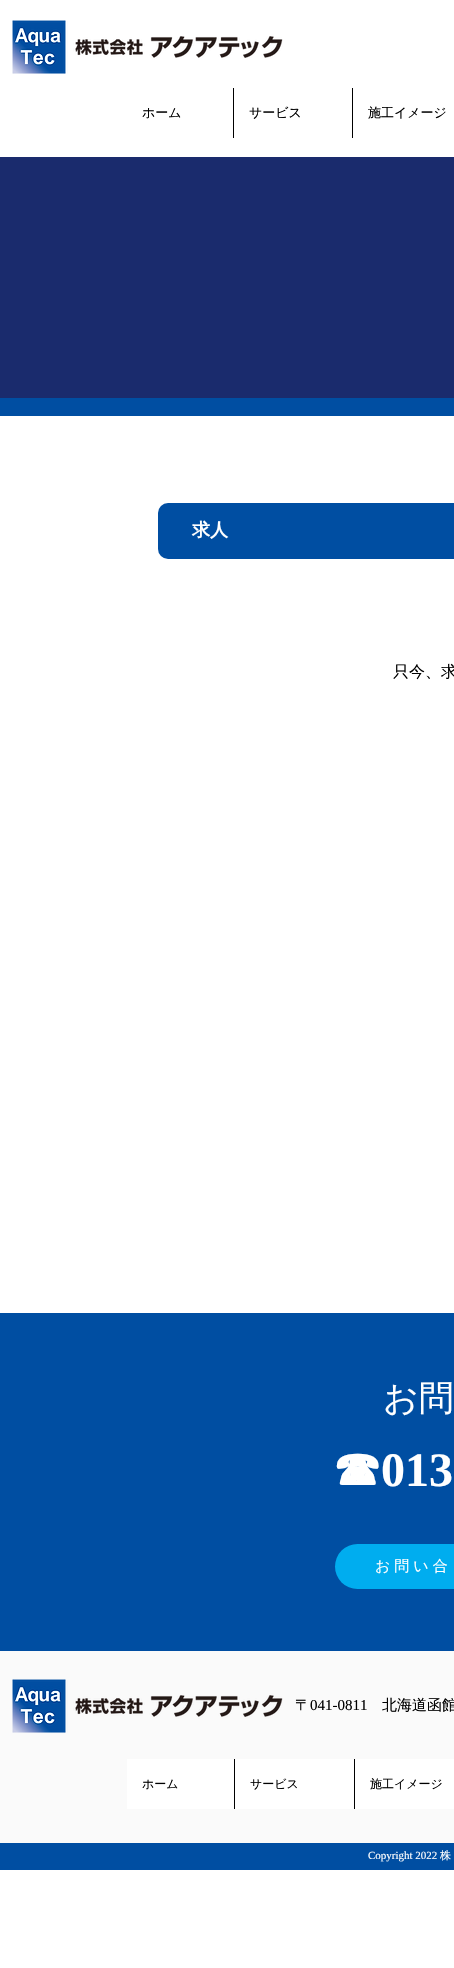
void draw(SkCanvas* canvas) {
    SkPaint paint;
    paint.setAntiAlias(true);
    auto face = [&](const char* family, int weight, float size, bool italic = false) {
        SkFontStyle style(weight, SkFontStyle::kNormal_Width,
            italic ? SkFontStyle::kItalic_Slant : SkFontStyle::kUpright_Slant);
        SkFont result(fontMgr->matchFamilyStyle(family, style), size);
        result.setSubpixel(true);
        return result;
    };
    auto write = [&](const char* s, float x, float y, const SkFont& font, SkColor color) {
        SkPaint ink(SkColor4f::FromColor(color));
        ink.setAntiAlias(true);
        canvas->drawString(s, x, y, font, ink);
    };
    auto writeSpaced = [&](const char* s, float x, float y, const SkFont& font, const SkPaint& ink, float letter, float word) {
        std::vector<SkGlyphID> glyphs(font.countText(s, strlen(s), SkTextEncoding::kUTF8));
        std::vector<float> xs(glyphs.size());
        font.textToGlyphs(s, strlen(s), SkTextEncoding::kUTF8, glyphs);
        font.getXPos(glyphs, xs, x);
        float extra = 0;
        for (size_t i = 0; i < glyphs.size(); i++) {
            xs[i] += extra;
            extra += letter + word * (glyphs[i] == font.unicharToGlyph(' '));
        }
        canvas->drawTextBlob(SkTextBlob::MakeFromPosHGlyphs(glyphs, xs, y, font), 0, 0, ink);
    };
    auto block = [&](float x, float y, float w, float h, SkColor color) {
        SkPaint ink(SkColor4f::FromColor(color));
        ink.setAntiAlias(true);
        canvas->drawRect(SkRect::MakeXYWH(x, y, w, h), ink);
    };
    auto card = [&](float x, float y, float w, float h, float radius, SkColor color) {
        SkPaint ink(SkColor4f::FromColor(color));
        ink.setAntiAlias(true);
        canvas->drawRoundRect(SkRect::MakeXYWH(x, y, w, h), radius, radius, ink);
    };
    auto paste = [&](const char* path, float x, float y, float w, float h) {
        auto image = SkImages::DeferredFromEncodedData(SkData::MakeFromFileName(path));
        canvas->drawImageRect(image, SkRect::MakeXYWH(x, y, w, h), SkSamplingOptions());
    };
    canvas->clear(SK_ColorWHITE);
    paste("pic1.png", 12, 20, 271, 54);
    auto kFont1 = face("WenQuanYi Zen Hei", 500, 13);
    write("ホーム", 142, 117, kFont1, SK_ColorBLACK);
    block(233, 88, 1, 50, SK_ColorBLACK);
    write("サービス", 249, 117, kFont1, SK_ColorBLACK);
    block(352, 88, 1, 50, SK_ColorBLACK);
    write("施工イメージ", 368, 117, kFont1, SK_ColorBLACK);
    block(0, 157, 454, 241, SkColorSetRGB(26, 43, 109));
    block(0, 398, 454, 18, SkColorSetRGB(0, 78, 162));
    card(158, 503, 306, 56, 10, SkColorSetRGB(0, 78, 162));
    auto kFont2 = face("WenQuanYi Zen Hei", 700, 18);
    write("求人", 192, 536, kFont2, SK_ColorWHITE);
    auto kFont3 = face("WenQuanYi Zen Hei", 500, 16);
    write("只今、求", 393, 677, kFont3, SK_ColorBLACK);
    block(0, 1313, 454, 557, SkColorSetRGB(0, 78, 162));
    auto kFont4 = face("WenQuanYi Zen Hei", 500, 35);
    write("お問", 383, 1410, kFont4, SK_ColorWHITE);
    auto kFont5 = face("WenQuanYi Zen Hei", 700, 48);
    write("☎", 333, 1486, kFont5, SK_ColorWHITE);
    auto kFont6 = face("Liberation Serif", 700, 48);
    write("013", 381, 1486, kFont6, SK_ColorWHITE);
    card(335, 1544, 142, 45, 22.5f, SkColorSetRGB(0, 173, 239));
    auto kFont7 = face("WenQuanYi Zen Hei", 500, 15);
    paint.setColor(SK_ColorWHITE);
    writeSpaced("お問い合", 375, 1571, kFont7, paint, 4, 0);
    block(0, 1651, 454, 192, SkColorSetRGB(250, 250, 250));
    paste("pic2.png", 12, 1679, 271, 54);
    write("〒", 295, 1710, kFont7, SK_ColorBLACK);
    auto kFont8 = face("Liberation Serif", 400, 15);
    write("041-0811", 310, 1710, kFont8, SK_ColorBLACK);
    write("北海道函館", 382, 1710, kFont7, SK_ColorBLACK);
    block(127, 1759, 327, 50, SK_ColorWHITE);
    auto kFont9 = face("WenQuanYi Zen Hei", 500, 12);
    write("ホーム", 142, 1788, kFont9, SK_ColorBLACK);
    block(234, 1759, 1, 50, SK_ColorBLACK);
    write("サービス", 250, 1788, kFont9, SK_ColorBLACK);
    block(354, 1759, 1, 50, SK_ColorBLACK);
    write("施工イメージ", 370, 1788, kFont9, SK_ColorBLACK);
    auto kFont10 = face("Liberation Serif", 400, 11);
    write("Copyright 2022", 368, 1859, kFont10, SK_ColorWHITE);
    auto kFont11 = face("WenQuanYi Zen Hei", 500, 11);
    write("株", 440, 1859, kFont11, SK_ColorWHITE);
}
